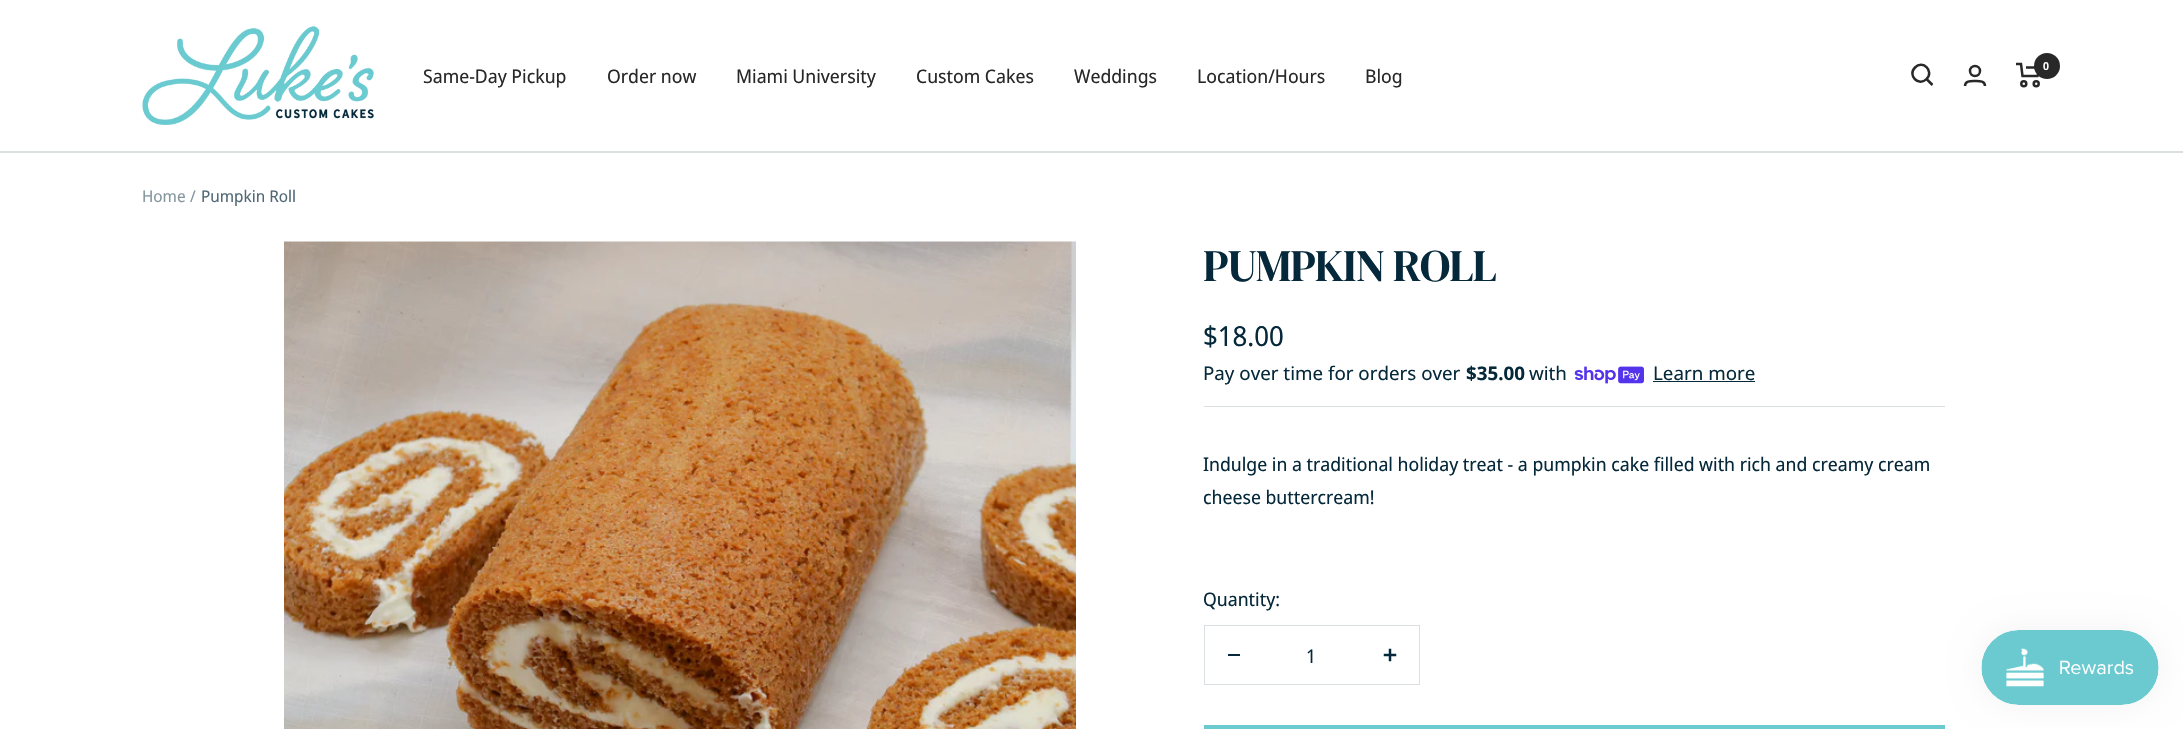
void draw(SkCanvas* canvas) {
    SkPaint paint;
    paint.setAntiAlias(true);
    auto face = [&](const char* family, int weight, float size, bool italic = false) {
        SkFontStyle style(weight, SkFontStyle::kNormal_Width,
            italic ? SkFontStyle::kItalic_Slant : SkFontStyle::kUpright_Slant);
        SkFont result(fontMgr->matchFamilyStyle(family, style), size);
        result.setSubpixel(true);
        return result;
    };
    auto write = [&](const char* s, float x, float y, const SkFont& font, SkColor color) {
        SkPaint ink(SkColor4f::FromColor(color));
        ink.setAntiAlias(true);
        canvas->drawString(s, x, y, font, ink);
    };
    auto writeSpaced = [&](const char* s, float x, float y, const SkFont& font, const SkPaint& ink, float letter, float word) {
        std::vector<SkGlyphID> glyphs(font.countText(s, strlen(s), SkTextEncoding::kUTF8));
        std::vector<float> xs(glyphs.size());
        font.textToGlyphs(s, strlen(s), SkTextEncoding::kUTF8, glyphs);
        font.getXPos(glyphs, xs, x);
        float extra = 0;
        for (size_t i = 0; i < glyphs.size(); i++) {
            xs[i] += extra;
            extra += letter + word * (glyphs[i] == font.unicharToGlyph(' '));
        }
        canvas->drawTextBlob(SkTextBlob::MakeFromPosHGlyphs(glyphs, xs, y, font), 0, 0, ink);
    };
    auto block = [&](float x, float y, float w, float h, SkColor color) {
        SkPaint ink(SkColor4f::FromColor(color));
        ink.setAntiAlias(true);
        canvas->drawRect(SkRect::MakeXYWH(x, y, w, h), ink);
    };
    auto paste = [&](const char* path, float x, float y, float w, float h) {
        auto image = SkImages::DeferredFromEncodedData(SkData::MakeFromFileName(path));
        canvas->drawImageRect(image, SkRect::MakeXYWH(x, y, w, h), SkSamplingOptions());
    };
    canvas->clear(SK_ColorWHITE);
    paint.setColor(SkColorSetRGB(218, 223, 225));
    canvas->drawPath(SkPathBuilder().moveTo(0, 151).lineTo(0, 153).lineTo(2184, 153).lineTo(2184, 1).lineTo(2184, 151).close().detach(), paint);
    paste("pic1.png", 142, 26, 232, 99);
    paint.setStyle(SkPaint::kStroke_Style);
    paint.setStrokeWidth(2.5f);
    paint.setColor(SkColorSetRGB(40, 40, 40));
    canvas->drawPath(SkPathBuilder().moveTo(1926.5f, 79).cubicTo(1934.5f, 71.5f, 1923, 59.5f, 1915, 67.5f).cubicTo(1907, 75.5f, 1919, 87, 1926.5f, 79).close().moveTo(1926.5f, 79).lineTo(1932.5f, 85).detach(), paint);
    canvas->drawCircle(1975, 71, 5, paint);
    canvas->drawPath(SkPathBuilder().moveTo(1965, 86).cubicTo(1965, 80.5f, 1971, 81, 1975, 81).cubicTo(1979, 81, 1985, 80.5f, 1985, 86).detach(), paint);
    canvas->drawPath(SkPathBuilder().moveTo(2016, 64).lineTo(2021, 64).lineTo(2022.5f, 76).lineTo(2037.5f, 76).lineTo(2040, 67.5f).lineTo(2026, 67.5f).detach(), paint);
    canvas->drawCircle(2023.8f, 83.8f, 2.5f, paint);
    canvas->drawCircle(2036.2f, 83.8f, 2.5f, paint);
    paint.setStyle(SkPaint::kFill_Style);
    canvas->drawCircle(2047, 66, 13, paint);
    auto kFont1 = face("Noto Sans Display", 600, 11);
    write("0", 2043, 70, kFont1, SK_ColorWHITE);
    auto kFont2 = face("Noto Sans Display", 400, 18.75f);
    write("Same-Day Pickup", 423, 83, kFont2, SkColorSetRGB(40, 40, 40));
    write("Order now", 607, 83, kFont2, SkColorSetRGB(40, 40, 40));
    write("Miami University", 736, 83, kFont2, SkColorSetRGB(40, 40, 40));
    write("Custom Cakes", 916, 83, kFont2, SkColorSetRGB(40, 40, 40));
    write("Weddings", 1074, 83, kFont2, SkColorSetRGB(40, 40, 40));
    write("Location/Hours", 1197, 83, kFont2, SkColorSetRGB(40, 40, 40));
    write("Blog", 1365, 83, kFont2, SkColorSetRGB(40, 40, 40));
    auto kFont3 = face("Noto Sans Display", 400, 16.25f);
    write("Home", 142, 202, kFont3, SkColorSetRGB(133, 150, 158));
    write("/", 190, 202, kFont3, SkColorSetRGB(133, 150, 158));
    write("Pumpkin Roll", 201, 202, kFont3, SkColorSetRGB(80, 105, 117));
    block(284, 241, 792, 1, SkColorSetRGB(245, 245, 245));
    paste("pic2.png", 284, 241, 792, 488);
    block(1204, 406, 741, 1, SkColorSetRGB(218, 223, 225));
    auto kFont4 = face("DM Serif Display", 400, 45);
    paint.setColor(SkColorSetRGB(5, 41, 58));
    writeSpaced("PUMPKIN ROLL", 1203, 281, kFont4, paint, -1, 0);
    auto kFont5 = face("Noto Sans Display", 400, 27.5f);
    write("$18.00", 1203, 346, kFont5, SkColorSetRGB(5, 41, 58));
    auto kFont6 = face("Noto Sans", 400, 18.75f);
    write("Pay over time for orders over", 1203, 380, kFont6, SkColorSetRGB(5, 41, 58));
    auto kFont7 = face("Noto Sans", 700, 18.75f);
    write("$35.00", 1466, 380, kFont7, SkColorSetRGB(5, 41, 58));
    write("with", 1529, 380, kFont6, SkColorSetRGB(5, 41, 58));
    paste("pic3.png", 1574, 366, 70, 18);
    write("Learn more", 1653, 380, kFont6, SkColorSetRGB(5, 41, 58));
    block(1653, 381, 102, 1, SkColorSetRGB(5, 41, 58));
    write("Indulge in a traditional holiday treat - a pumpkin cake filled with rich and creamy cream", 1203, 471, kFont2, SkColorSetRGB(5, 41, 58));
    write("cheese buttercream!", 1203, 504, kFont2, SkColorSetRGB(5, 41, 58));
    write("Quantity:", 1203, 606, kFont2, SkColorSetRGB(5, 41, 58));
    paint.setStyle(SkPaint::kStroke_Style);
    paint.setStrokeWidth(1);
    paint.setColor(SkColorSetRGB(218, 223, 225));
    canvas->drawRect(SkRect::MakeXYWH(1204.5f, 625.5f, 215, 59), paint);
    block(1228, 654, 12, 2, SkColorSetRGB(5, 41, 58));
    write("1", 1306, 663, kFont2, SkColorSetRGB(5, 41, 58));
    paste("pic4.png", 1383, 648, 14, 14);
    block(1204, 725, 741, 4, SkColorSetRGB(106, 202, 208));
    paint.setStyle(SkPaint::kFill_Style);
    paint.setColor(SkColorSetARGB(13, 0, 0, 0));
    paint.setMaskFilter(SkMaskFilter::MakeBlur(kNormal_SkBlurStyle, 15.5f));
    canvas->drawRoundRect(SkRect::MakeXYWH(1981, 630, 178, 75), 37.5f, 37.5f, paint);
    paint.setMaskFilter(nullptr);
    paste("pic5.png", 1981, 630, 178, 75);
}
